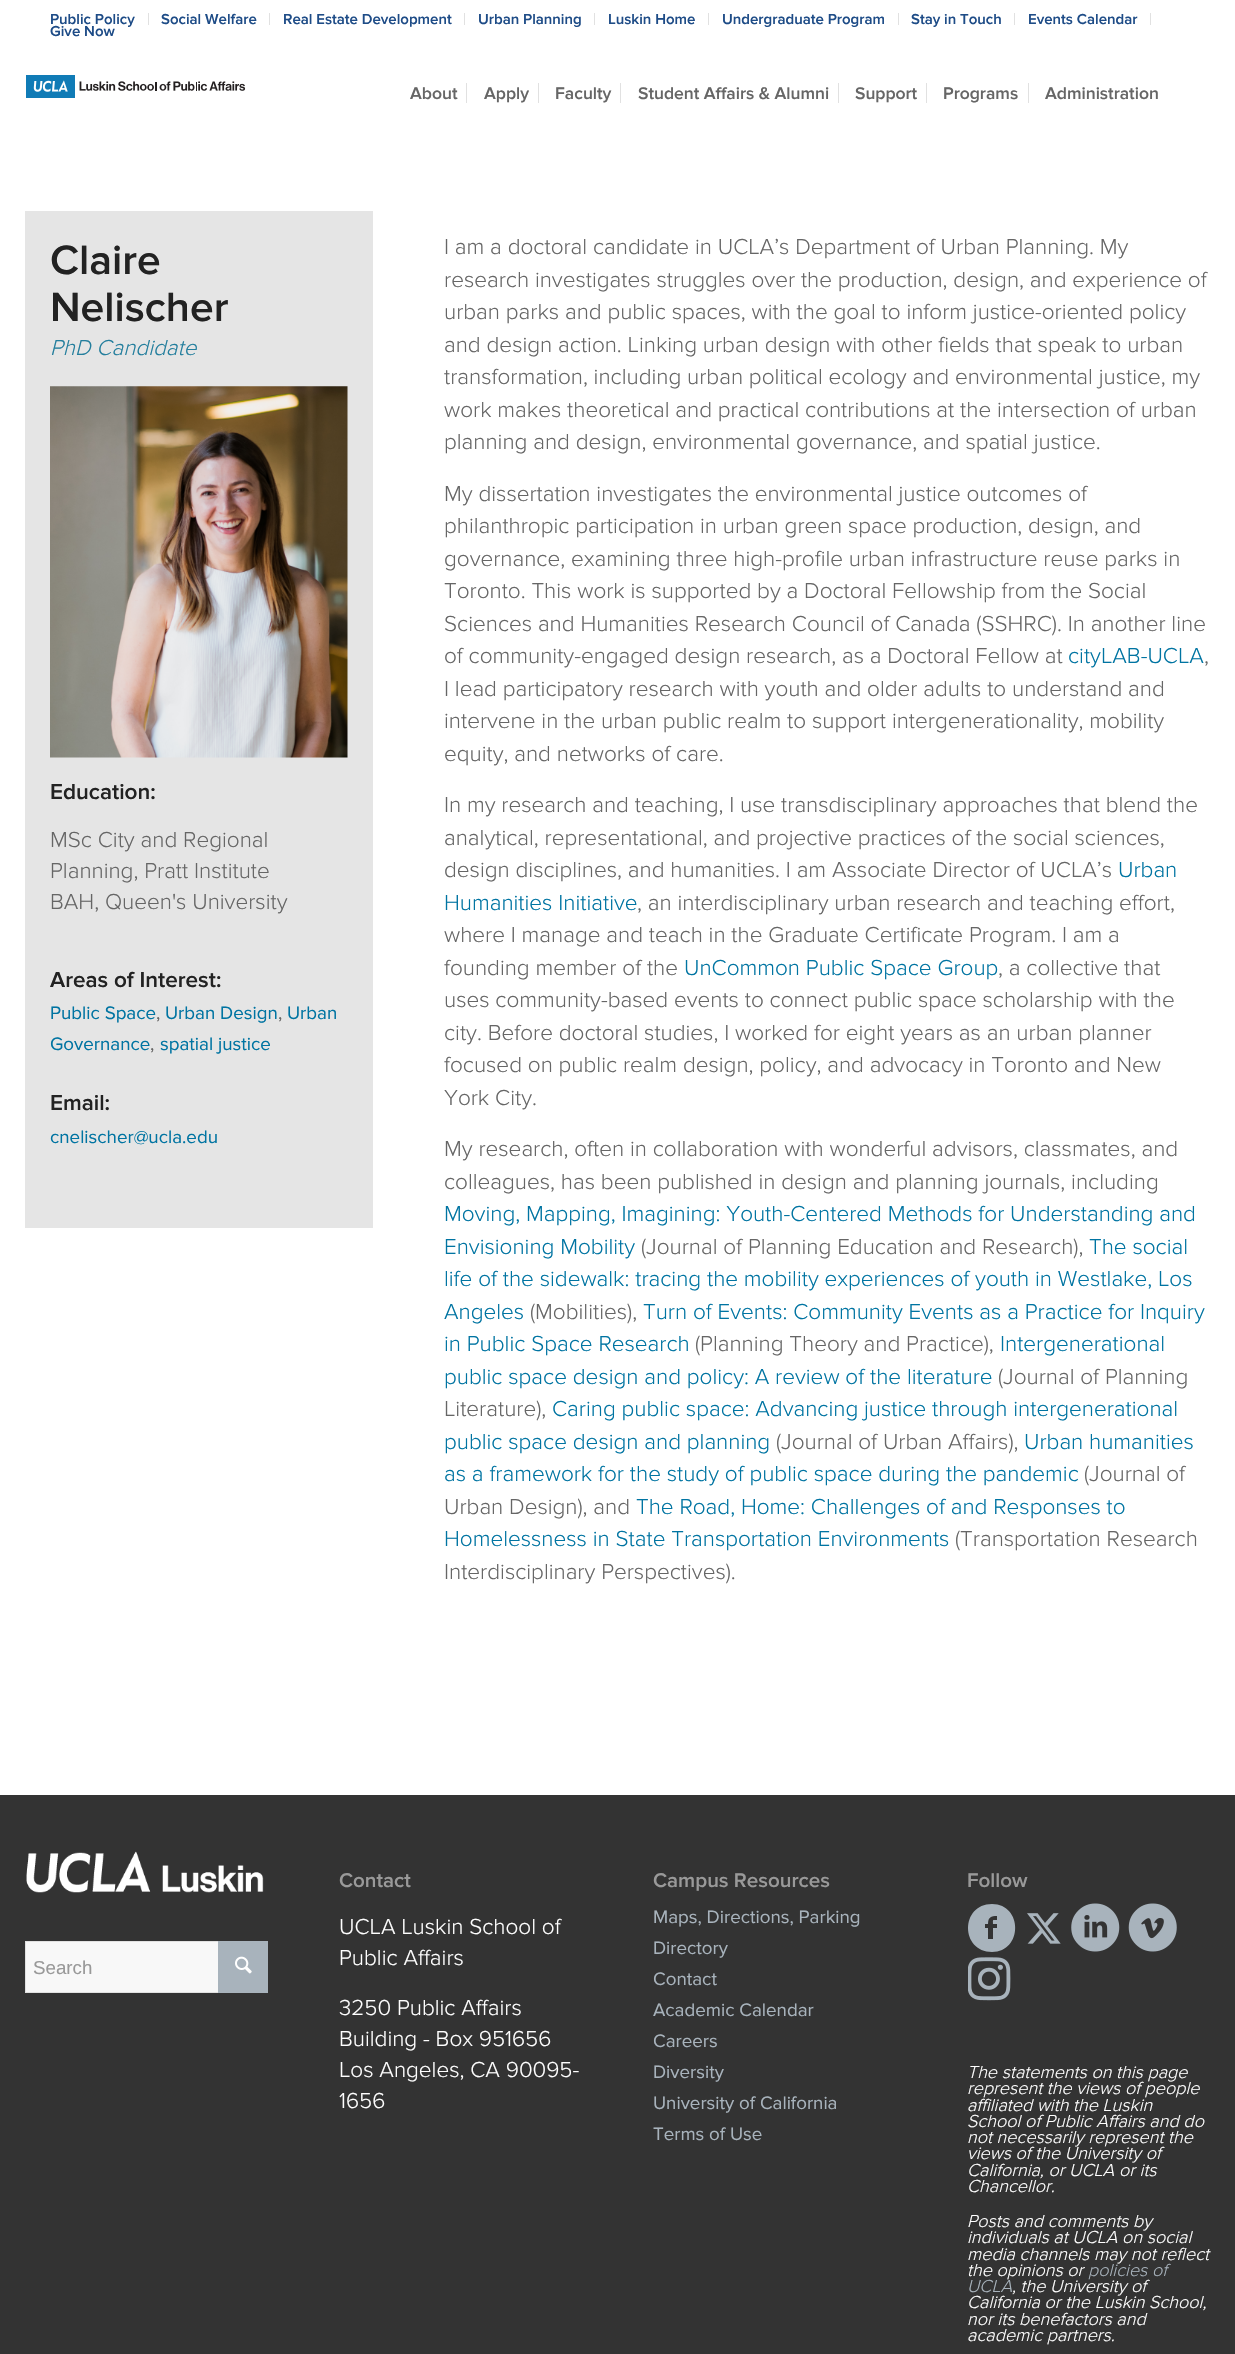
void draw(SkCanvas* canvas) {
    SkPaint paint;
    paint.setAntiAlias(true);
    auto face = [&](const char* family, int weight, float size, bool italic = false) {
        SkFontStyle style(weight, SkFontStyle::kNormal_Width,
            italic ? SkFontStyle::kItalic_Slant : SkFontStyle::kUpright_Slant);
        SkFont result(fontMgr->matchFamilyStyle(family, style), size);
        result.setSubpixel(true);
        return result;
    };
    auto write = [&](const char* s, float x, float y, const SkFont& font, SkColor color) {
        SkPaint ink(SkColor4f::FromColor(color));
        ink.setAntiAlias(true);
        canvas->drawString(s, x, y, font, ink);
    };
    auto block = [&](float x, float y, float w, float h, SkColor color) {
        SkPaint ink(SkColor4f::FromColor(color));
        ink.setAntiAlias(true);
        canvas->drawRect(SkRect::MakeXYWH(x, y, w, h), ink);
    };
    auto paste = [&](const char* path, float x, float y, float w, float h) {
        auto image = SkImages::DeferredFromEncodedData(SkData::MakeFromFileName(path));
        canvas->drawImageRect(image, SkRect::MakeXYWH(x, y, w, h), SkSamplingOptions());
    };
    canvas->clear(SK_ColorWHITE);
    block(148, 13, 1, 12, SkColorSetRGB(225, 225, 225));
    auto kFont1 = face("Proxima Nova", 600, 15);
    write("Public Policy", 50, 24, kFont1, SkColorSetRGB(30, 76, 135));
    block(269, 13, 1, 12, SkColorSetRGB(225, 225, 225));
    write("Social Welfare", 161, 24, kFont1, SkColorSetRGB(30, 76, 135));
    block(464, 13, 1, 12, SkColorSetRGB(225, 225, 225));
    write("Real Estate Development", 283, 24, kFont1, SkColorSetRGB(30, 76, 135));
    block(594, 13, 1, 12, SkColorSetRGB(225, 225, 225));
    write("Urban Planning", 478, 24, kFont1, SkColorSetRGB(30, 76, 135));
    block(708, 13, 1, 12, SkColorSetRGB(225, 225, 225));
    write("Luskin Home", 608, 24, kFont1, SkColorSetRGB(30, 76, 135));
    block(898, 13, 1, 12, SkColorSetRGB(225, 225, 225));
    write("Undergraduate Program", 722, 24, kFont1, SkColorSetRGB(30, 76, 135));
    block(1014, 13, 1, 12, SkColorSetRGB(225, 225, 225));
    write("Stay in Touch", 911, 24, kFont1, SkColorSetRGB(30, 76, 135));
    block(1150, 13, 1, 12, SkColorSetRGB(225, 225, 225));
    write("Events Calendar", 1028, 24, kFont1, SkColorSetRGB(30, 76, 135));
    write("Give Now", 50, 36, kFont1, SkColorSetRGB(30, 76, 135));
    paste("pic1.png", 26, 75, 220, 23);
    auto kFont2 = face("Proxima Nova", 600, 17.5f);
    write("About", 410, 99, kFont2, SkColorSetRGB(102, 102, 102));
    write("Apply", 484, 99, kFont2, SkColorSetRGB(102, 102, 102));
    block(466, 83, 1, 20, SkColorSetRGB(225, 225, 225));
    write("Faculty", 555, 99, kFont2, SkColorSetRGB(102, 102, 102));
    block(538, 83, 1, 20, SkColorSetRGB(225, 225, 225));
    write("Student Affairs & Alumni", 638, 99, kFont2, SkColorSetRGB(102, 102, 102));
    block(620, 83, 1, 20, SkColorSetRGB(225, 225, 225));
    write("Support", 855, 99, kFont2, SkColorSetRGB(102, 102, 102));
    block(838, 83, 1, 20, SkColorSetRGB(225, 225, 225));
    write("Programs", 943, 99, kFont2, SkColorSetRGB(102, 102, 102));
    block(926, 83, 1, 20, SkColorSetRGB(225, 225, 225));
    write("Administration", 1045, 99, kFont2, SkColorSetRGB(102, 102, 102));
    block(1028, 83, 1, 20, SkColorSetRGB(225, 225, 225));
    block(25, 211, 348, 1017, SkColorSetRGB(229, 229, 229));
    auto kFont3 = face("Proxima Nova", 600, 42.5f);
    write("Claire", 50, 274, kFont3, SkColorSetRGB(34, 34, 34));
    write("Nelischer", 50, 321, kFont3, SkColorSetRGB(34, 34, 34));
    auto kFont4 = face("Proxima Nova", 300, 22.5f, true);
    write("PhD Candidate", 50, 355, kFont4, SkColorSetRGB(35, 126, 157));
    paste("pic2.png", 50, 386, 298, 372);
    auto kFont5 = face("Proxima Nova", 600, 22.5f);
    write("Education:", 50, 799, kFont5, SkColorSetRGB(34, 34, 34));
    auto kFont6 = face("Proxima Nova", 300, 22.5f);
    write("MSc City and Regional", 50, 847, kFont6, SkColorSetRGB(102, 102, 102));
    write("Planning, Pratt Institute", 50, 878, kFont6, SkColorSetRGB(102, 102, 102));
    write("BAH, Queen's University", 50, 909, kFont6, SkColorSetRGB(102, 102, 102));
    write("Areas of Interest:", 50, 987, kFont5, SkColorSetRGB(34, 34, 34));
    auto kFont7 = face("Proxima Nova", 400, 18.75f);
    write("Public Space", 50, 1019, kFont7, SkColorSetRGB(0, 116, 162));
    write(",", 156, 1019, kFont7, SkColorSetRGB(102, 102, 102));
    write("Urban Design", 165, 1019, kFont7, SkColorSetRGB(0, 116, 162));
    write(",", 278, 1019, kFont7, SkColorSetRGB(102, 102, 102));
    write("Urban", 287, 1019, kFont7, SkColorSetRGB(0, 116, 162));
    write("Governance", 50, 1050, kFont7, SkColorSetRGB(0, 116, 162));
    write(",", 150, 1050, kFont7, SkColorSetRGB(102, 102, 102));
    write("spatial justice", 160, 1050, kFont7, SkColorSetRGB(0, 116, 162));
    write("Email:", 50, 1110, kFont5, SkColorSetRGB(34, 34, 34));
    write("cnelischer@ucla.edu", 50, 1143, kFont7, SkColorSetRGB(0, 116, 162));
    write("I am a doctoral candidate in UCLA’s Department of Urban Planning. My", 444, 254, kFont6, SkColorSetRGB(102, 102, 102));
    write("research investigates struggles over the production, design, and experience of", 444, 287, kFont6, SkColorSetRGB(102, 102, 102));
    write("urban parks and public spaces, with the goal to inform justice-oriented policy", 444, 319, kFont6, SkColorSetRGB(102, 102, 102));
    write("and design action. Linking urban design with other fields that speak to urban", 444, 352, kFont6, SkColorSetRGB(102, 102, 102));
    write("transformation, including urban political ecology and environmental justice, my", 444, 384, kFont6, SkColorSetRGB(102, 102, 102));
    write("work makes theoretical and practical contributions at the intersection of urban", 444, 417, kFont6, SkColorSetRGB(102, 102, 102));
    write("planning and design, environmental governance, and spatial justice.", 444, 449, kFont6, SkColorSetRGB(102, 102, 102));
    write("My dissertation investigates the environmental justice outcomes of", 444, 501, kFont6, SkColorSetRGB(102, 102, 102));
    write("philanthropic participation in urban green space production, design, and", 444, 533, kFont6, SkColorSetRGB(102, 102, 102));
    write("governance, examining three high-profile urban infrastructure reuse parks in", 444, 566, kFont6, SkColorSetRGB(102, 102, 102));
    write("Toronto. This work is supported by a Doctoral Fellowship from the Social", 444, 598, kFont6, SkColorSetRGB(102, 102, 102));
    write("Sciences and Humanities Research Council of Canada (SSHRC). In another line", 444, 631, kFont6, SkColorSetRGB(102, 102, 102));
    write("of community-engaged design research, as a Doctoral Fellow at", 444, 663, kFont6, SkColorSetRGB(102, 102, 102));
    write("cityLAB-UCLA", 1068, 663, kFont6, SkColorSetRGB(0, 116, 162));
    write(",", 1204, 663, kFont6, SkColorSetRGB(102, 102, 102));
    write("I lead participatory research with youth and older adults to understand and", 444, 696, kFont6, SkColorSetRGB(102, 102, 102));
    write("intervene in the urban public realm to support intergenerationality, mobility", 444, 728, kFont6, SkColorSetRGB(102, 102, 102));
    write("equity, and networks of care.", 444, 761, kFont6, SkColorSetRGB(102, 102, 102));
    write("In my research and teaching, I use transdisciplinary approaches that blend the", 444, 812, kFont6, SkColorSetRGB(102, 102, 102));
    write("analytical, representational, and projective practices of the social sciences,", 444, 845, kFont6, SkColorSetRGB(102, 102, 102));
    write("design disciplines, and humanities. I am Associate Director of UCLA’s", 444, 877, kFont6, SkColorSetRGB(102, 102, 102));
    write("Urban", 1118, 877, kFont6, SkColorSetRGB(0, 116, 162));
    write("Humanities Initiative", 444, 910, kFont6, SkColorSetRGB(0, 116, 162));
    write(", an interdisciplinary urban research and teaching effort,", 637, 910, kFont6, SkColorSetRGB(102, 102, 102));
    write("where I manage and teach in the Graduate Certificate Program. I am a", 444, 942, kFont6, SkColorSetRGB(102, 102, 102));
    write("founding member of the", 444, 975, kFont6, SkColorSetRGB(102, 102, 102));
    write("UnCommon Public Space Group", 684, 975, kFont6, SkColorSetRGB(0, 116, 162));
    write(", a collective that", 998, 975, kFont6, SkColorSetRGB(102, 102, 102));
    write("uses community-based events to connect public space scholarship with the", 444, 1007, kFont6, SkColorSetRGB(102, 102, 102));
    write("city. Before doctoral studies, I worked for eight years as an urban planner", 444, 1040, kFont6, SkColorSetRGB(102, 102, 102));
    write("focused on public realm design, policy, and advocacy in Toronto and New", 444, 1072, kFont6, SkColorSetRGB(102, 102, 102));
    write("York City.", 444, 1105, kFont6, SkColorSetRGB(102, 102, 102));
    write("My research, often in collaboration with wonderful advisors, classmates, and", 444, 1156, kFont6, SkColorSetRGB(102, 102, 102));
    write("colleagues, has been published in design and planning journals, including", 444, 1189, kFont6, SkColorSetRGB(102, 102, 102));
    write("Moving, Mapping, Imagining: Youth-Centered Methods for Understanding and", 444, 1221, kFont6, SkColorSetRGB(0, 116, 162));
    write("Envisioning Mobility", 444, 1254, kFont6, SkColorSetRGB(0, 116, 162));
    write("(Journal of Planning Education and Research),", 641, 1254, kFont6, SkColorSetRGB(102, 102, 102));
    write("The social", 1089, 1254, kFont6, SkColorSetRGB(0, 116, 162));
    write("life of the sidewalk: tracing the mobility experiences of youth in Westlake, Los", 444, 1286, kFont6, SkColorSetRGB(0, 116, 162));
    write("Angeles", 444, 1319, kFont6, SkColorSetRGB(0, 116, 162));
    write("(Mobilities),", 530, 1319, kFont6, SkColorSetRGB(102, 102, 102));
    write("Turn of Events: Community Events as a Practice for Inquiry", 643, 1319, kFont6, SkColorSetRGB(0, 116, 162));
    write("in Public Space Research", 444, 1351, kFont6, SkColorSetRGB(0, 116, 162));
    write("(Planning Theory and Practice),", 695, 1351, kFont6, SkColorSetRGB(102, 102, 102));
    write("Intergenerational", 1000, 1351, kFont6, SkColorSetRGB(0, 116, 162));
    write("public space design and policy: A review of the literature", 444, 1384, kFont6, SkColorSetRGB(0, 116, 162));
    write("(Journal of Planning", 998, 1384, kFont6, SkColorSetRGB(102, 102, 102));
    write("Literature),", 444, 1416, kFont6, SkColorSetRGB(102, 102, 102));
    write("Caring public space: Advancing justice through intergenerational", 552, 1416, kFont6, SkColorSetRGB(0, 116, 162));
    write("public space design and planning", 444, 1449, kFont6, SkColorSetRGB(0, 116, 162));
    write("(Journal of Urban Affairs),", 776, 1449, kFont6, SkColorSetRGB(102, 102, 102));
    write("Urban humanities", 1024, 1449, kFont6, SkColorSetRGB(0, 116, 162));
    write("as a framework for the study of public space during the pandemic", 444, 1481, kFont6, SkColorSetRGB(0, 116, 162));
    write("(Journal of", 1084, 1481, kFont6, SkColorSetRGB(102, 102, 102));
    write("Urban Design), and", 444, 1514, kFont6, SkColorSetRGB(102, 102, 102));
    write("The Road, Home: Challenges of and Responses to", 636, 1514, kFont6, SkColorSetRGB(0, 116, 162));
    write("Homelessness in State Transportation Environments", 444, 1546, kFont6, SkColorSetRGB(0, 116, 162));
    write("(Transportation Research", 955, 1546, kFont6, SkColorSetRGB(102, 102, 102));
    write("Interdisciplinary Perspectives).", 444, 1579, kFont6, SkColorSetRGB(102, 102, 102));
    block(0, 1795, 1235, 559, SkColorSetRGB(51, 51, 51));
    paste("pic3.png", 26, 1851, 238, 42);
    block(26, 1942, 192, 50, SkColorSetRGB(248, 248, 248));
    paint.setStyle(SkPaint::kStroke_Style);
    paint.setStrokeWidth(1);
    paint.setColor(SkColorSetRGB(225, 225, 225));
    canvas->drawRect(SkRect::MakeXYWH(25.5f, 1941.5f, 242, 51), paint);
    auto kFont8 = face("Liberation Sans", 400, 18.75f);
    write("Search", 33, 1974, kFont8, SkColorSetRGB(153, 153, 153));
    block(218, 1941, 50, 52, SkColorSetRGB(168, 179, 188));
    paste("pic4.png", 235, 1956, 17, 18);
    auto kFont9 = face("Proxima Nova", 600, 20.6f);
    write("Contact", 339, 1887, kFont9, SkColorSetRGB(153, 153, 153));
    write("UCLA Luskin School of", 339, 1934, kFont6, SK_ColorWHITE);
    write("Public Affairs", 339, 1965, kFont6, SK_ColorWHITE);
    write("3250 Public Affairs", 339, 2015, kFont6, SK_ColorWHITE);
    write("Building - Box 951656", 339, 2046, kFont6, SK_ColorWHITE);
    write("Los Angeles, CA 90095-", 339, 2077, kFont6, SK_ColorWHITE);
    write("1656", 339, 2108, kFont6, SK_ColorWHITE);
    write("Campus Resources", 653, 1887, kFont9, SkColorSetRGB(153, 153, 153));
    write("Maps, Directions, Parking", 653, 1923, kFont7, SkColorSetRGB(168, 179, 188));
    write("Directory", 653, 1954, kFont7, SkColorSetRGB(168, 179, 188));
    write("Contact", 653, 1985, kFont7, SkColorSetRGB(168, 179, 188));
    write("Academic Calendar", 653, 2016, kFont7, SkColorSetRGB(168, 179, 188));
    write("Careers", 653, 2047, kFont7, SkColorSetRGB(168, 179, 188));
    write("Diversity", 653, 2078, kFont7, SkColorSetRGB(168, 179, 188));
    write("University of California", 653, 2109, kFont7, SkColorSetRGB(168, 179, 188));
    write("Terms of Use", 653, 2140, kFont7, SkColorSetRGB(168, 179, 188));
    write("Follow", 967, 1887, kFont9, SkColorSetRGB(153, 153, 153));
    paint.setStyle(SkPaint::kFill_Style);
    paint.setColor(SkColorSetRGB(168, 179, 188));
    canvas->drawPath(SkPathBuilder().moveTo(992, 1904).cubicTo(1023, 1904, 1023, 1952, 992, 1952).cubicTo(960, 1952, 960, 1904, 992, 1904).close().moveTo(997, 1920).lineTo(997, 1916).cubicTo(991, 1916, 988, 1917, 988, 1924).lineTo(985, 1924).lineTo(985, 1928).lineTo(988, 1928).lineTo(988, 1939).lineTo(993, 1939).lineTo(993, 1928).lineTo(997, 1928).lineTo(997, 1924).lineTo(993, 1924).cubicTo(993, 1919, 992, 1920, 997, 1920).close().detach(), paint);
    paste("pic5.png", 1027, 1913, 34, 31);
    paste("pic6.png", 1071, 1903, 49, 49);
    paste("pic7.png", 1128, 1903, 49, 49);
    paste("pic8.png", 968, 1957, 43, 44);
    auto kFont10 = face("Proxima Nova", 300, 18, true);
    write("The statements on this page", 967, 2078, kFont10, SK_ColorWHITE);
    write("represent the views of people", 967, 2094, kFont10, SK_ColorWHITE);
    write("affiliated with the Luskin", 967, 2111, kFont10, SK_ColorWHITE);
    write("School of Public Affairs and do", 967, 2127, kFont10, SK_ColorWHITE);
    write("not necessarily represent the", 967, 2143, kFont10, SK_ColorWHITE);
    write("views of the University of", 967, 2159, kFont10, SK_ColorWHITE);
    write("California, or UCLA or its", 967, 2176, kFont10, SK_ColorWHITE);
    write("Chancellor.", 967, 2192, kFont10, SK_ColorWHITE);
    write("Posts and comments by", 967, 2227, kFont10, SK_ColorWHITE);
    write("individuals at UCLA on social", 967, 2243, kFont10, SK_ColorWHITE);
    write("media channels may not reflect", 967, 2260, kFont10, SK_ColorWHITE);
    write("the opinions or", 967, 2276, kFont10, SK_ColorWHITE);
    write("policies of", 1088, 2276, kFont10, SkColorSetRGB(168, 179, 188));
    write("UCLA", 967, 2292, kFont10, SkColorSetRGB(168, 179, 188));
    write(", the University of", 1012, 2292, kFont10, SK_ColorWHITE);
    write("California or the Luskin School,", 967, 2308, kFont10, SK_ColorWHITE);
    write("nor its benefactors and", 967, 2325, kFont10, SK_ColorWHITE);
    write("academic partners.", 967, 2341, kFont10, SK_ColorWHITE);
}
